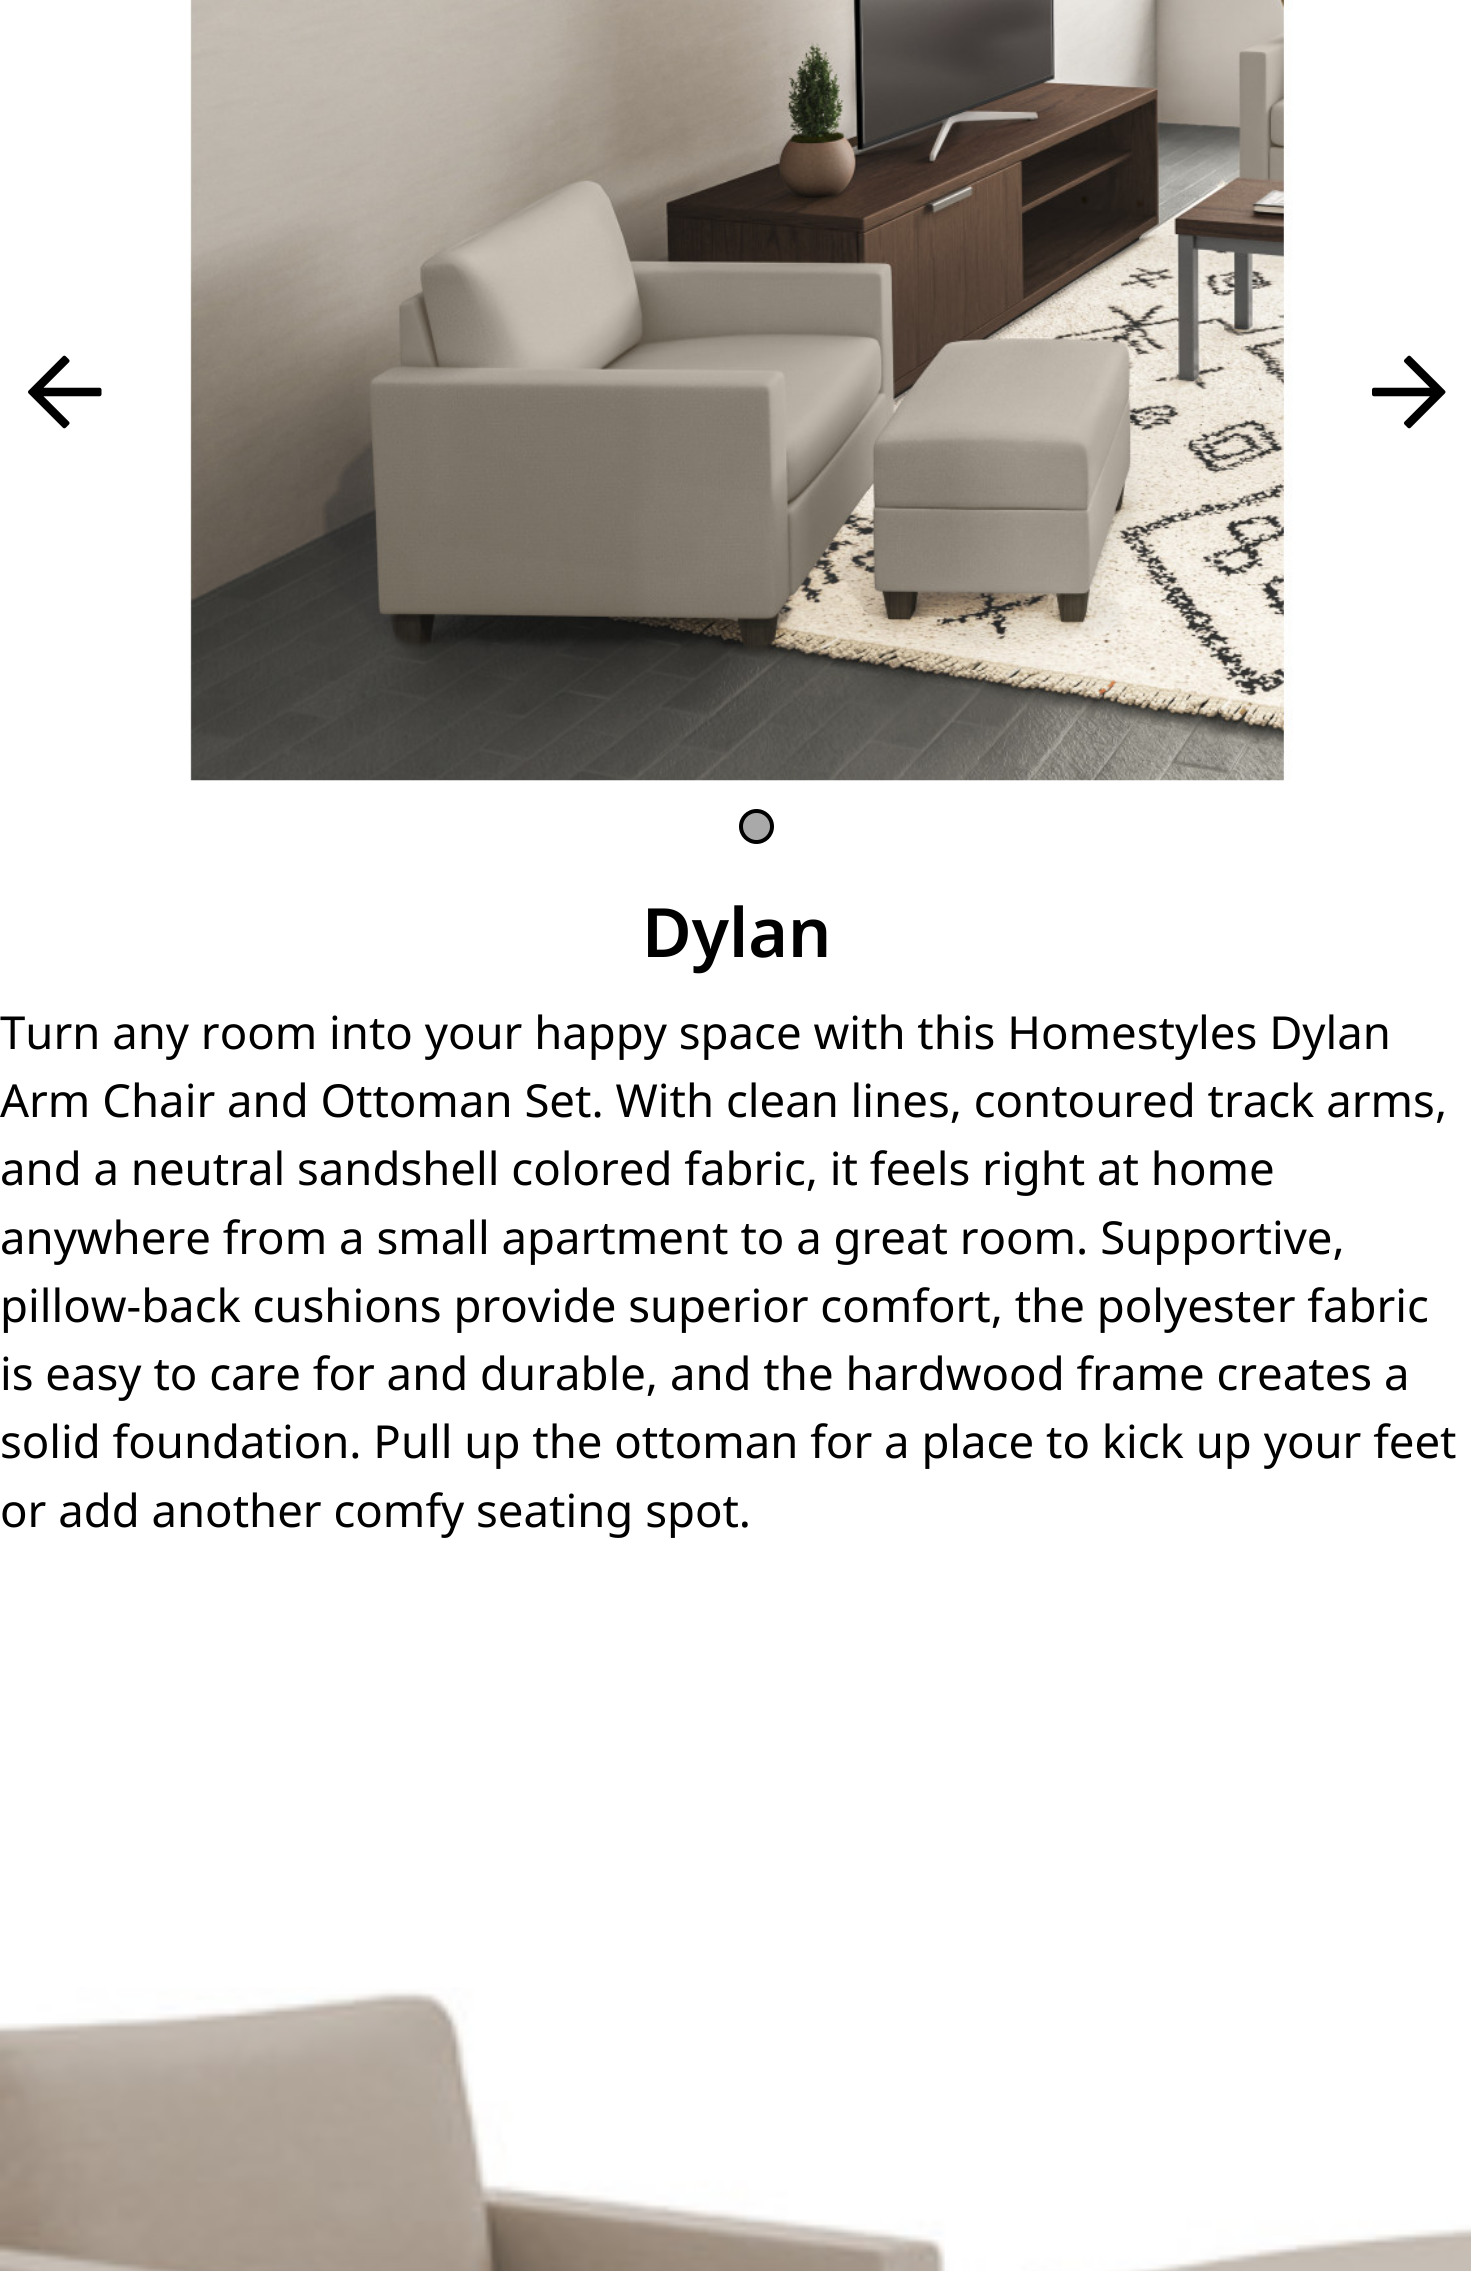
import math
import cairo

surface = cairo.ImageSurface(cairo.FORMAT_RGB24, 1471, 2271)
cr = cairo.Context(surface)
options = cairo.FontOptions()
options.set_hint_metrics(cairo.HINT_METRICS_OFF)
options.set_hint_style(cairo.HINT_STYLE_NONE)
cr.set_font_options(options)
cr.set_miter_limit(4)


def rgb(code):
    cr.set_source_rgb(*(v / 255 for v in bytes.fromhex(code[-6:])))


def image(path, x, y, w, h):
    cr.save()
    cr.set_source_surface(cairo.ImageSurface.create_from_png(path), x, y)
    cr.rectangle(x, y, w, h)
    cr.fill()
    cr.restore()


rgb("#ffffff")
cr.paint()
image("img/1.png", 28, 355, 74, 74)
image("img/2.png", 189, 0, 1104, 781)
image("img/3.png", 1372, 355, 74, 74)
rgb("#a9a9a9")
cr.arc(756.5, 826.5, 15.5, 0, 2 * math.pi)
cr.fill_preserve()
rgb("#000000")
cr.set_line_width(4)
cr.stroke()
image("img/4.png", 0, 1987, 1471, 284)
cr.select_font_face("Noto Sans SemiBold")
cr.set_font_size(68)
cr.move_to(642, 957)
cr.show_text("Dylan")
cr.select_font_face("Noto Sans")
cr.set_font_size(45.5)
for x, y, s in [
    (0, 1049, "Turn any room into your happy space with this Homestyles Dylan"),
    (0, 1117, "Arm Chair and Ottoman Set. With clean lines, contoured track arms,"),
    (0, 1185, "and a neutral sandshell colored fabric, it feels right at home"),
    (0, 1254, "anywhere from a small apartment to a great room. Supportive,"),
    (0, 1322, "pillow-back cushions provide superior comfort, the polyester fabric"),
    (0, 1390, "is easy to care for and durable, and the hardwood frame creates a"),
    (0, 1458, "solid foundation. Pull up the ottoman for a place to kick up your feet"),
    (0, 1527, "or add another comfy seating spot."),
]:
    cr.move_to(x, y)
    cr.show_text(s)
surface.write_to_png("page.png")
